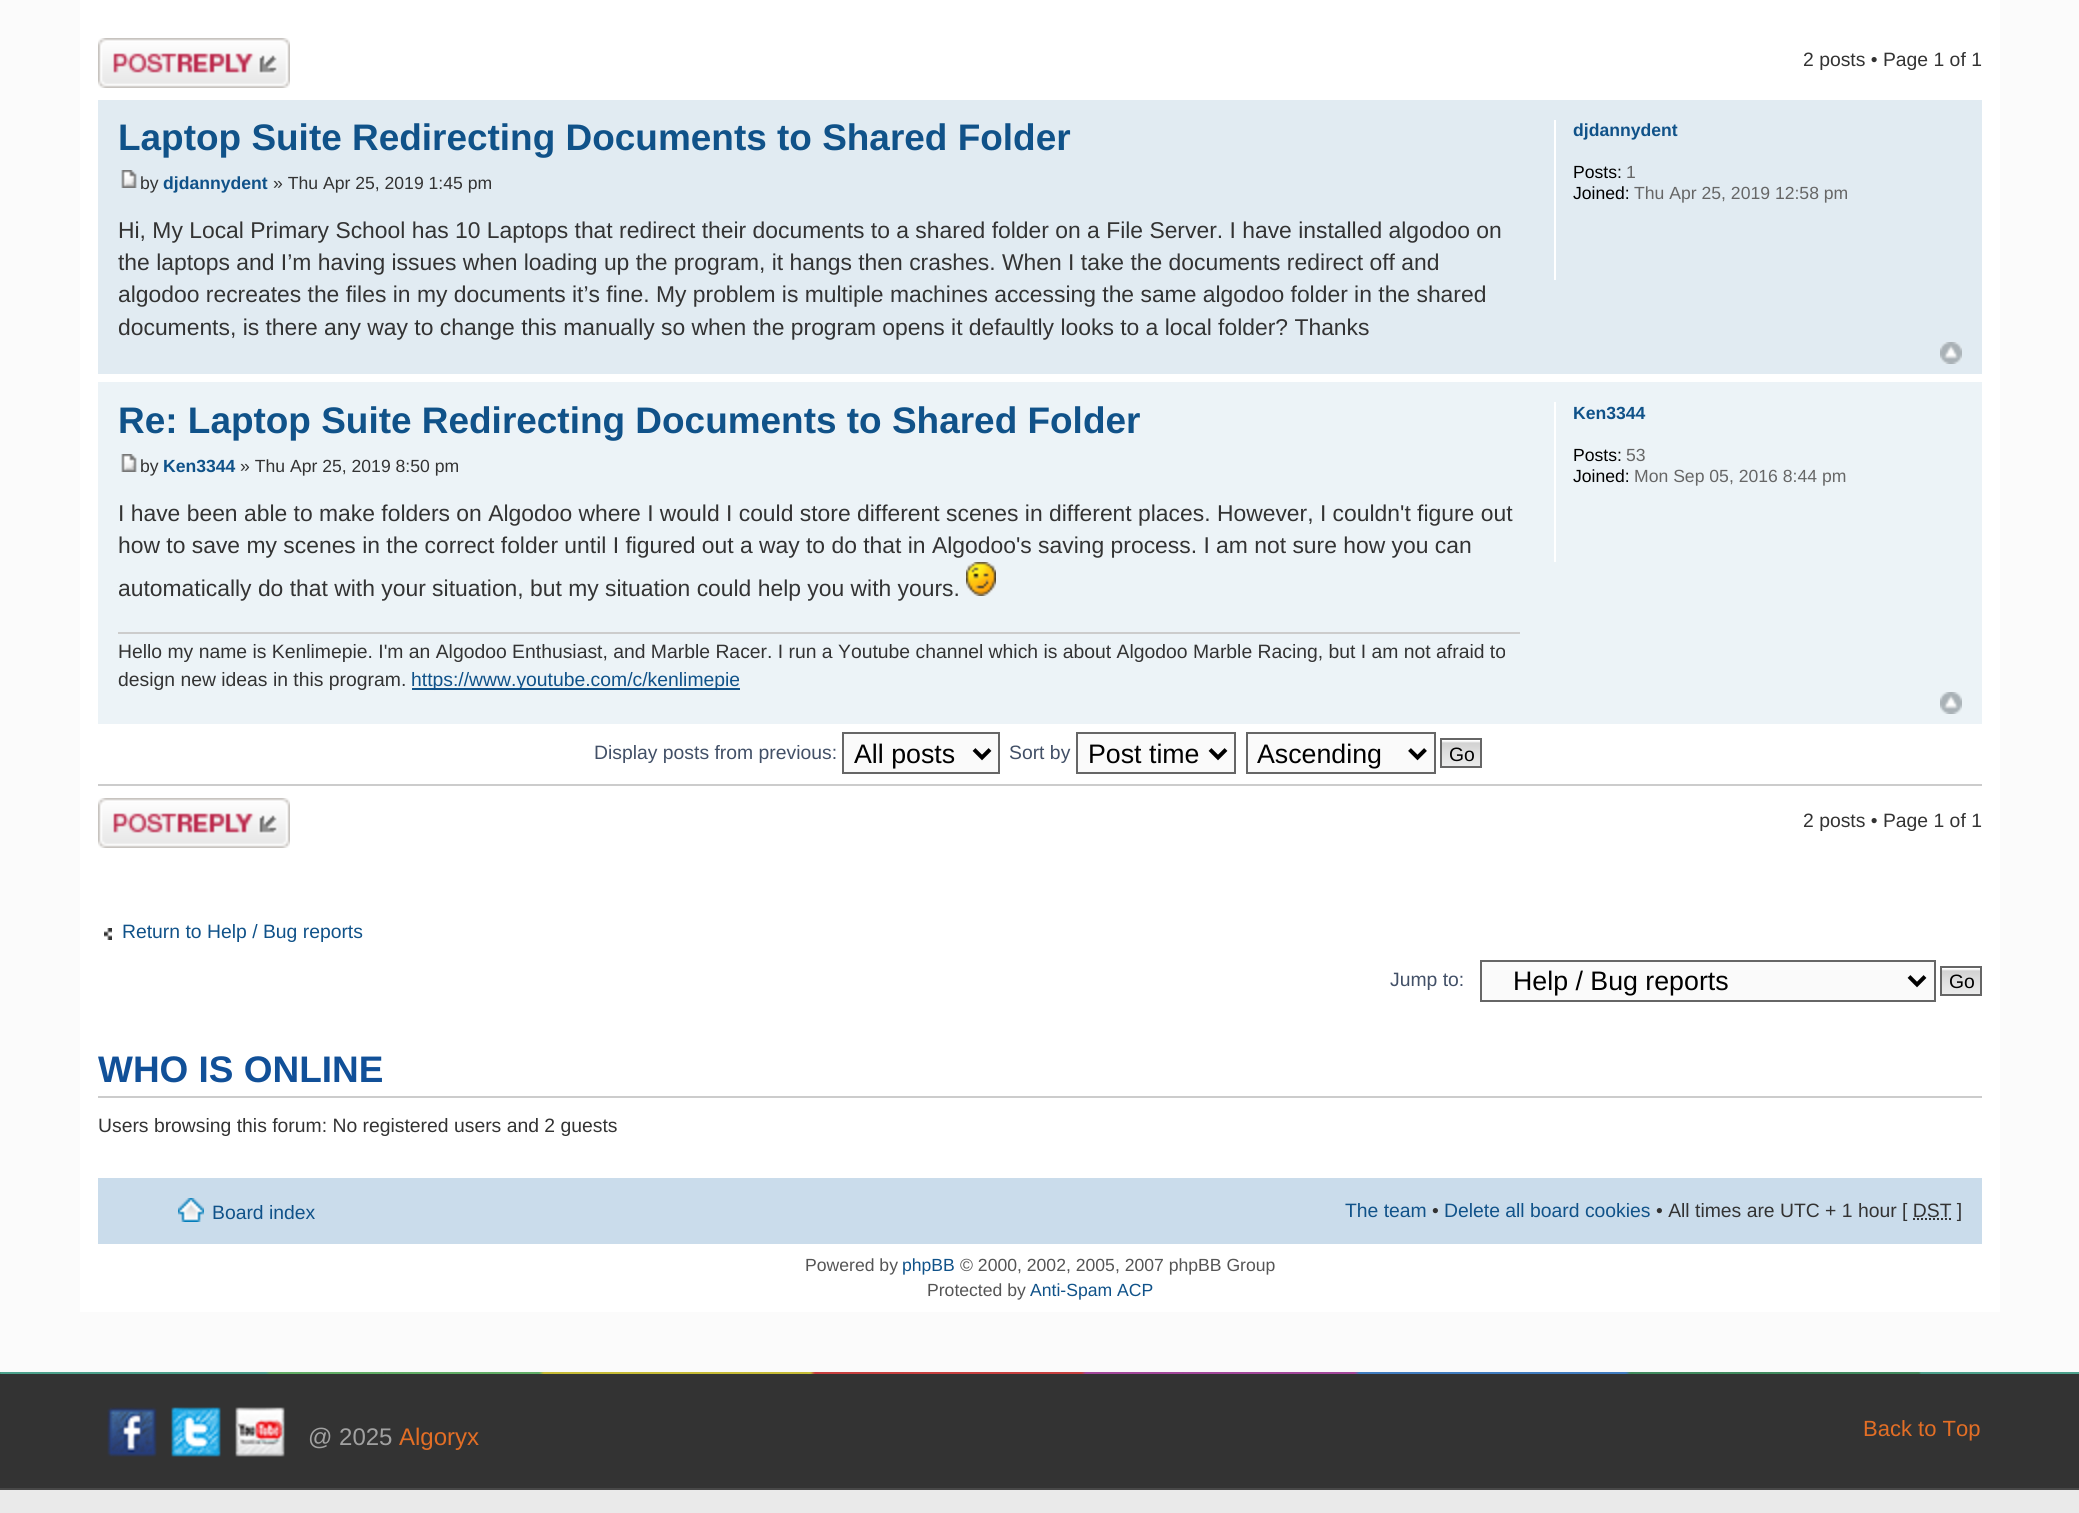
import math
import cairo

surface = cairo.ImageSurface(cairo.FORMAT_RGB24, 2079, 1513)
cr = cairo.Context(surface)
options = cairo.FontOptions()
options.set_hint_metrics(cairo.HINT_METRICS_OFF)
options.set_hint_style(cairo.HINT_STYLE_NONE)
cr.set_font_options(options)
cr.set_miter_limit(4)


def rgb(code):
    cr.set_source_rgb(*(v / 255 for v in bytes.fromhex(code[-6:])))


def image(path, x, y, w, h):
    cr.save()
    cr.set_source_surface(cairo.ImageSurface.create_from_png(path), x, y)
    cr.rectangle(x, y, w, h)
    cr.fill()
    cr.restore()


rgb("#eaeaea")
cr.paint()
rgb("#fbfbfb")
cr.rectangle(0, 0, 2079, 1372)
cr.fill()
rgb("#ffffff")
cr.rectangle(80, 0, 1920, 1312)
cr.fill()
image("img/1.png", 98, 38, 192, 50)
rgb("#e1ebf2")
cr.rectangle(98, 100, 1884, 274)
cr.fill()
image("img/2.png", 121, 170, 16, 18)
rgb("#ffffff")
cr.rectangle(1554, 120, 2, 160)
cr.fill()
image("img/3.png", 1940, 342, 22, 22)
rgb("#ecf3f7")
cr.rectangle(98, 382, 1884, 342)
cr.fill()
image("img/4.png", 121, 454, 16, 18)
image("img/5.png", 966, 562, 30, 34)
for x, y, w, h, color in [
    (118, 632, 1402, 2, "#cccccc"),
    (412, 688, 328, 2, "#105289"),
    (1554, 402, 2, 160, "#ffffff"),
]:
    rgb(color)
    cr.rectangle(x, y, w, h)
    cr.fill()
image("img/6.png", 1940, 692, 22, 22)
rgb("#fafafa")
cr.rectangle(843, 733, 156, 40)
cr.fill_preserve()
rgb("#666666")
cr.stroke()
cr.new_path()
cr.move_to(974, 749.5)
cr.line_to(982, 757.5)
cr.line_to(990, 749.5)
rgb("#000000")
cr.set_line_width(4)
cr.stroke()
rgb("#fafafa")
cr.rectangle(1077, 733, 158, 40)
cr.fill_preserve()
rgb("#666666")
cr.set_line_width(2)
cr.stroke()
cr.new_path()
cr.move_to(1210, 749.5)
cr.line_to(1218, 757.5)
cr.line_to(1226, 749.5)
rgb("#000000")
cr.set_line_width(4)
cr.stroke()
rgb("#fafafa")
cr.rectangle(1247, 733, 188, 40)
cr.fill_preserve()
rgb("#666666")
cr.set_line_width(2)
cr.stroke()
cr.new_path()
cr.move_to(1409.5, 749.5)
cr.line_to(1417.5, 757.5)
cr.line_to(1425.5, 749.5)
rgb("#000000")
cr.set_line_width(4)
cr.stroke()
image("img/7.png", 1442, 740, 38, 26)
cr.rectangle(1441, 739, 40, 28)
rgb("#666666")
cr.set_line_width(2)
cr.stroke()
rgb("#cccccc")
cr.rectangle(98, 784, 1884, 2)
cr.fill()
image("img/1.png", 98, 798, 192, 50)
image("img/8.png", 104, 928, 8, 12)
rgb("#fafafa")
cr.rectangle(1481, 961, 454, 40)
cr.fill_preserve()
rgb("#666666")
cr.stroke()
cr.new_path()
cr.move_to(1909, 976.5)
cr.line_to(1917, 984.5)
cr.line_to(1925, 976.5)
rgb("#000000")
cr.set_line_width(4)
cr.stroke()
image("img/7.png", 1942, 968, 38, 26)
cr.rectangle(1941, 967, 40, 28)
rgb("#666666")
cr.set_line_width(2)
cr.stroke()
rgb("#cccccc")
cr.rectangle(98, 1096, 1884, 2)
cr.fill()
rgb("#cadceb")
cr.rectangle(98, 1178, 1884, 66)
cr.fill()
image("img/9.png", 178, 1198, 26, 24)
cr.new_path()
cr.move_to(1913, 1219)
cr.line_to(1951.5, 1219)
rgb("#333333")
cr.set_dash([2, 2])
cr.stroke()
cr.rectangle(0, 1374, 2079, 114)
cr.fill()
image("img/10.png", 0, 1372, 2079, 2)
rgb("#484848")
cr.rectangle(0, 1488, 2079, 2)
cr.fill()
image("img/11.png", 107, 1407, 50, 50)
image("img/12.png", 171, 1407, 50, 50)
image("img/13.png", 235, 1407, 50, 50)
cr.select_font_face("Liberation Sans")
cr.set_font_size(19.35)
rgb("#333333")
cr.move_to(1803, 66)
cr.show_text("2 posts • Page 1 of 1")
cr.select_font_face("Liberation Sans", cairo.FONT_SLANT_NORMAL, cairo.FONT_WEIGHT_BOLD)
cr.set_font_size(36.95)
rgb("#105289")
cr.move_to(118, 150)
cr.show_text("Laptop Suite Redirecting Documents to Shared Folder")
cr.select_font_face("Liberation Sans")
cr.set_font_size(17.6)
rgb("#333333")
cr.move_to(140, 189)
cr.show_text("by")
cr.select_font_face("Liberation Sans", cairo.FONT_SLANT_NORMAL, cairo.FONT_WEIGHT_BOLD)
rgb("#105289")
cr.move_to(163, 189)
cr.show_text("djdannydent")
cr.select_font_face("Liberation Sans")
rgb("#333333")
cr.move_to(273, 189)
cr.show_text("» Thu Apr 25, 2019 1:45 pm")
cr.set_font_size(22.88)
for x, y, s in [
    (118, 238, "Hi, My Local Primary School has 10 Laptops that redirect their documents to a shared folder on a File Server. I have installed algodoo on"),
    (118, 270, "the laptops and I’m having issues when loading up the program, it hangs then crashes. When I take the documents redirect off and"),
    (118, 302, "algodoo recreates the files in my documents it’s fine. My problem is multiple machines accessing the same algodoo folder in the shared"),
    (118, 335, "documents, is there any way to change this manually so when the program opens it defaultly looks to a local folder? Thanks"),
]:
    cr.move_to(x, y)
    cr.show_text(s)
cr.select_font_face("Liberation Sans", cairo.FONT_SLANT_NORMAL, cairo.FONT_WEIGHT_BOLD)
cr.set_font_size(17.6)
rgb("#105289")
cr.move_to(1573, 136)
cr.show_text("djdannydent")
cr.select_font_face("Liberation Sans")
rgb("#000000")
cr.move_to(1573, 178)
cr.show_text("Posts:")
rgb("#666666")
cr.move_to(1626, 178)
cr.show_text("1")
rgb("#000000")
cr.move_to(1573, 199)
cr.show_text("Joined:")
rgb("#666666")
cr.move_to(1634, 199)
cr.show_text("Thu Apr 25, 2019 12:58 pm")
cr.select_font_face("Liberation Sans", cairo.FONT_SLANT_NORMAL, cairo.FONT_WEIGHT_BOLD)
cr.set_font_size(36.95)
rgb("#105289")
cr.move_to(118, 433)
cr.show_text("Re: Laptop Suite Redirecting Documents to Shared Folder")
cr.select_font_face("Liberation Sans")
cr.set_font_size(17.6)
rgb("#333333")
cr.move_to(140, 472)
cr.show_text("by")
cr.select_font_face("Liberation Sans", cairo.FONT_SLANT_NORMAL, cairo.FONT_WEIGHT_BOLD)
rgb("#105289")
cr.move_to(163, 472)
cr.show_text("Ken3344")
cr.select_font_face("Liberation Sans")
rgb("#333333")
cr.move_to(240, 472)
cr.show_text("» Thu Apr 25, 2019 8:50 pm")
cr.set_font_size(22.88)
for x, y, s in [
    (118, 521, "I have been able to make folders on Algodoo where I would I could store different scenes in different places. However, I couldn't figure out"),
    (118, 553, "how to save my scenes in the correct folder until I figured out a way to do that in Algodoo's saving process. I am not sure how you can"),
    (118, 596, "automatically do that with your situation, but my situation could help you with yours."),
]:
    cr.move_to(x, y)
    cr.show_text(s)
cr.set_font_size(19.35)
cr.move_to(118, 658)
cr.show_text("Hello my name is Kenlimepie. I'm an Algodoo Enthusiast, and Marble Racer. I run a Youtube channel which is about Algodoo Marble Racing, but I am not afraid to")
cr.move_to(118, 686)
cr.show_text("design new ideas in this program.")
rgb("#105289")
cr.move_to(411, 686)
cr.show_text("https://www.youtube.com/c/kenlimepie")
cr.select_font_face("Liberation Sans", cairo.FONT_SLANT_NORMAL, cairo.FONT_WEIGHT_BOLD)
cr.set_font_size(17.6)
cr.move_to(1573, 419)
cr.show_text("Ken3344")
cr.select_font_face("Liberation Sans")
rgb("#000000")
cr.move_to(1573, 461)
cr.show_text("Posts:")
rgb("#666666")
cr.move_to(1626, 461)
cr.show_text("53")
rgb("#000000")
cr.move_to(1573, 482)
cr.show_text("Joined:")
rgb("#666666")
cr.move_to(1634, 482)
cr.show_text("Mon Sep 05, 2016 8:44 pm")
cr.set_font_size(19.35)
rgb("#425067")
cr.move_to(594, 759)
cr.show_text("Display posts from previous:")
cr.set_font_size(26.75)
rgb("#000000")
cr.move_to(854, 763)
cr.show_text("All posts")
cr.set_font_size(19.35)
rgb("#425067")
cr.move_to(1009, 759)
cr.show_text("Sort by")
cr.set_font_size(26.75)
rgb("#000000")
cr.move_to(1088, 763)
cr.show_text("Post time")
cr.move_to(1257, 763)
cr.show_text("Ascending")
cr.set_font_size(19.35)
cr.move_to(1449, 761)
cr.show_text("Go")
rgb("#333333")
cr.move_to(1803, 827)
cr.show_text("2 posts • Page 1 of 1")
rgb("#105289")
cr.move_to(122, 938)
cr.show_text("Return to Help / Bug reports")
rgb("#425067")
cr.move_to(1390, 986)
cr.show_text("Jump to:")
cr.set_font_size(26.75)
rgb("#000000")
cr.move_to(1513, 990)
cr.show_text("Help / Bug reports")
cr.set_font_size(19.35)
cr.move_to(1949, 988)
cr.show_text("Go")
cr.select_font_face("Liberation Sans", cairo.FONT_SLANT_NORMAL, cairo.FONT_WEIGHT_BOLD)
cr.set_font_size(36.95)
rgb("#115098")
cr.move_to(98, 1082)
cr.show_text("WHO IS ONLINE")
cr.select_font_face("Liberation Sans")
cr.set_font_size(19.35)
rgb("#333333")
cr.move_to(98, 1132)
cr.show_text("Users browsing this forum: No registered users and 2 guests")
rgb("#105289")
cr.move_to(212, 1219)
cr.show_text("Board index")
cr.move_to(1345, 1217)
cr.show_text("The team")
rgb("#333333")
cr.move_to(1432, 1217)
cr.show_text("•")
rgb("#105289")
cr.move_to(1444, 1217)
cr.show_text("Delete all board cookies")
rgb("#333333")
cr.move_to(1656, 1217)
cr.show_text("• All times are UTC + 1 hour [ DST ]")
cr.set_font_size(17.6)
rgb("#555555")
cr.move_to(805, 1271)
cr.show_text("Powered by")
rgb("#105289")
cr.move_to(902, 1271)
cr.show_text("phpBB")
rgb("#555555")
cr.move_to(960, 1271)
cr.show_text("© 2000, 2002, 2005, 2007 phpBB Group")
cr.move_to(927, 1296)
cr.show_text("Protected by")
rgb("#105289")
cr.move_to(1030, 1296)
cr.show_text("Anti-Spam ACP")
cr.set_font_size(24)
rgb("#a1a1a1")
cr.move_to(308, 1445)
cr.show_text("@ 2025")
rgb("#e36e25")
cr.move_to(399, 1445)
cr.show_text("Algoryx")
cr.set_font_size(22)
cr.move_to(1863, 1436)
cr.show_text("Back to Top")
surface.write_to_png("page.png")
